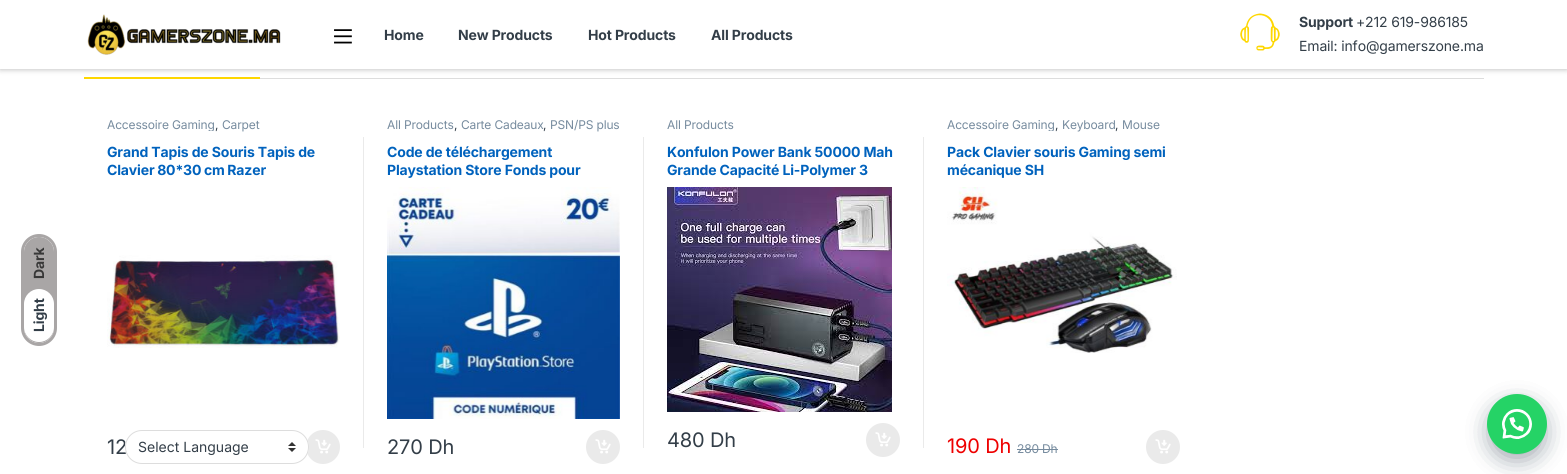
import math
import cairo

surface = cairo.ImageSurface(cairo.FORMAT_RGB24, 1567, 474)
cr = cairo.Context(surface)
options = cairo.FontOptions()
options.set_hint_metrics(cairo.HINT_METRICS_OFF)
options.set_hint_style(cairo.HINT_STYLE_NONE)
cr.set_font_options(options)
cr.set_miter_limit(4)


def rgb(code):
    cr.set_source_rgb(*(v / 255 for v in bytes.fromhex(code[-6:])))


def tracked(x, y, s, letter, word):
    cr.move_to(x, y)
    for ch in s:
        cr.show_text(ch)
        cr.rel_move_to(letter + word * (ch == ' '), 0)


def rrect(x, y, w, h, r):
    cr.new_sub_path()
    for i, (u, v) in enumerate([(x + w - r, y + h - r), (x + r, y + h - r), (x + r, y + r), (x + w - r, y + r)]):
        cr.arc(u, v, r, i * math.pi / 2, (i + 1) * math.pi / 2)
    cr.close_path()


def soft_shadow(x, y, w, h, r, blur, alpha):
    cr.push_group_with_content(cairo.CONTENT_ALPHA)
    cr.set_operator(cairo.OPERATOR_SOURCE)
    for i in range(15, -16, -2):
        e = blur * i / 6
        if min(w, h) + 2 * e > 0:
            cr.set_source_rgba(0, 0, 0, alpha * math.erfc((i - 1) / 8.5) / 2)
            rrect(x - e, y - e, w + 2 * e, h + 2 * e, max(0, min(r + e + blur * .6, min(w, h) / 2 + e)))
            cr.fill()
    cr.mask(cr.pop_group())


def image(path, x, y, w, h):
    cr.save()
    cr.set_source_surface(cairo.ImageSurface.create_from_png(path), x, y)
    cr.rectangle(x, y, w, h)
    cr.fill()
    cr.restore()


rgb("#ffffff")
cr.paint()
rrect(22.5, 235.5, 33, 109, 16.5)
rgb("#a9a6a6")
cr.set_line_width(3)
cr.stroke()
rrect(24, 237, 30, 106, 15)
cr.fill()
rgb("#ffffff")
rrect(24, 289, 30, 53, 15)
cr.fill()
rgb("#dddddd")
cr.rectangle(260, 78, 1224, 1)
cr.fill()
rgb("#fed700")
cr.rectangle(84, 77, 176, 2)
cr.fill()
rgb("#010101")
soft_shadow(0, 0, 1567, 69, 0, 3, 0.3)
rgb("#ffffff")
cr.rectangle(0, 0, 1567, 69)
cr.fill()
image("img/1.png", 87, 14, 194, 41)
image("img/2.png", 334, 29, 18, 15)
image("img/3.png", 1240, 13, 40, 38)
image("img/4.png", 107, 255, 233, 93)
rgb("#eaeaea")
cr.arc(323, 447, 17, 0, 2 * math.pi)
cr.fill()
image("img/5.png", 315, 439, 16, 15)
cr.rectangle(363, 137, 1, 311)
cr.fill()
image("img/6.png", 387, 187, 233, 232)
cr.arc(603, 447, 17, 0, 2 * math.pi)
cr.fill()
image("img/5.png", 595, 439, 16, 15)
cr.rectangle(643, 137, 1, 311)
cr.fill()
image("img/7.png", 667, 187, 225, 225)
cr.arc(883, 440, 17, 0, 2 * math.pi)
cr.fill()
image("img/5.png", 875, 432, 16, 15)
cr.rectangle(923, 137, 1, 311)
cr.fill()
image("img/8.png", 947, 187, 230, 166)
rgb("#768b9e")
cr.rectangle(1017, 449, 41, 1)
cr.fill()
rgb("#eaeaea")
cr.arc(1163, 447, 17, 0, 2 * math.pi)
cr.fill()
image("img/5.png", 1155, 439, 16, 15)
rgb("#2d3e4f")
soft_shadow(1492, 407, 50, 50, 25, 12.5, 0.3)
soft_shadow(1492, 407, 50, 50, 25, 12.5, 0.3)
rgb("#25d366")
cr.arc(1517, 424, 30, 0, 2 * math.pi)
cr.fill()
image("img/10.png", 1502, 409, 30, 30)
cr.select_font_face("Inter", cairo.FONT_SLANT_NORMAL, cairo.FONT_WEIGHT_BOLD)
cr.set_font_size(14)
rgb("#383838")
cr.save()
cr.translate(44, 279)
cr.rotate(-90 * math.pi / 180)
tracked(0, 0, "Dark", -0.15, 0)
cr.restore()
rgb("#333e48")
cr.save()
cr.translate(44, 332)
cr.rotate(-90 * math.pi / 180)
tracked(0, 0, "Light", -0.15, 0)
cr.restore()
for x, y, s in [
    (384, 40, "Home"),
    (458, 40, "New Products"),
    (588, 40, "Hot Products"),
    (711, 40, "All Products"),
    (1299, 27, "Support"),
]:
    tracked(x, y, s, -0.15, 0)
cr.select_font_face("Inter")
tracked(1356, 27, "+212 619-986185", -0.15, 0)
tracked(1299, 51, "Email: info@gamerszone.ma", -0.15, 0)
cr.save()
cr.rectangle(107, 119, 233, 12)
cr.clip()
cr.set_font_size(12)
rgb("#768b9e")
tracked(107, 129, "Accessoire Gaming", -0.15, 0)
cr.restore()
cr.set_font_size(12)
tracked(215, 129, ",", -0.15, 0)
rgb("#768b9e")
tracked(222, 129, "Carpet", -0.15, 0)
cr.select_font_face("Inter", cairo.FONT_SLANT_NORMAL, cairo.FONT_WEIGHT_BOLD)
cr.set_font_size(14)
rgb("#0062bd")
tracked(107, 157, "Grand Tapis de Souris Tapis de", -0.15, 0)
tracked(107, 175, "Clavier 80*30 cm Razer", -0.15, -0.5)
cr.select_font_face("Inter")
cr.set_font_size(20)
rgb("#333e48")
tracked(107, 454, "12", -0.15, 0)
cr.set_font_size(12)
rgb("#768b9e")
tracked(387, 129, "All Products", -0.15, 0)
rgb("#333e48")
tracked(454, 129, ",", -0.15, 0)
rgb("#768b9e")
tracked(461, 129, "Carte Cadeaux", -0.15, 0)
rgb("#333e48")
tracked(543, 129, ",", -0.15, 0)
rgb("#768b9e")
tracked(550, 129, "PSN/PS plus", -0.15, 0)
cr.select_font_face("Inter", cairo.FONT_SLANT_NORMAL, cairo.FONT_WEIGHT_BOLD)
cr.set_font_size(14)
rgb("#0062bd")
tracked(387, 157, "Code de téléchargement", -0.15, 0)
tracked(387, 175, "Playstation Store Fonds pour", -0.15, 0)
cr.select_font_face("Inter")
cr.set_font_size(20)
rgb("#333e48")
tracked(387, 454, "270 Dh", -0.15, 0)
cr.set_font_size(12)
rgb("#768b9e")
tracked(667, 129, "All Products", -0.15, 0)
cr.select_font_face("Inter", cairo.FONT_SLANT_NORMAL, cairo.FONT_WEIGHT_BOLD)
cr.set_font_size(14)
rgb("#0062bd")
tracked(667, 157, "Konfulon Power Bank 50000 Mah", -0.15, 0)
tracked(667, 175, "Grande Capacité Li-Polymer 3", -0.15, 0)
cr.select_font_face("Inter")
cr.set_font_size(20)
rgb("#333e48")
tracked(667, 447, "480 Dh", -0.15, 0)
cr.save()
cr.rectangle(947, 119, 233, 12)
cr.clip()
cr.set_font_size(12)
rgb("#768b9e")
tracked(947, 129, "Accessoire Gaming", -0.15, 0)
cr.restore()
cr.set_font_size(12)
tracked(1055, 129, ",", -0.15, 0)
rgb("#768b9e")
tracked(1062, 129, "Keyboard", -0.15, 0)
rgb("#333e48")
tracked(1115, 129, ",", -0.15, 0)
rgb("#768b9e")
tracked(1122, 129, "Mouse", -0.15, 0)
cr.select_font_face("Inter", cairo.FONT_SLANT_NORMAL, cairo.FONT_WEIGHT_BOLD)
cr.set_font_size(14)
rgb("#0062bd")
tracked(947, 157, "Pack Clavier souris Gaming semi", -0.15, 0)
tracked(947, 175, "mécanique SH", -0.15, 0)
cr.select_font_face("Inter")
cr.set_font_size(20)
rgb("#ee0000")
tracked(947, 453, "190 Dh", -0.15, 0)
cr.set_font_size(12)
rgb("#768b9e")
tracked(1017, 453, "280 Dh", -0.15, 0)
rgb("#ffffff")
rrect(125, 430, 184, 34, 17)
cr.fill()
image("img/9.png", 288, 442, 8, 10)
rrect(125.5, 430.5, 183, 33, 16.5)
rgb("#dddddd")
cr.set_line_width(1)
cr.stroke()
cr.set_font_size(14)
rgb("#333e48")
cr.move_to(138, 452)
cr.show_text("Select Language")
surface.write_to_png("page.png")
